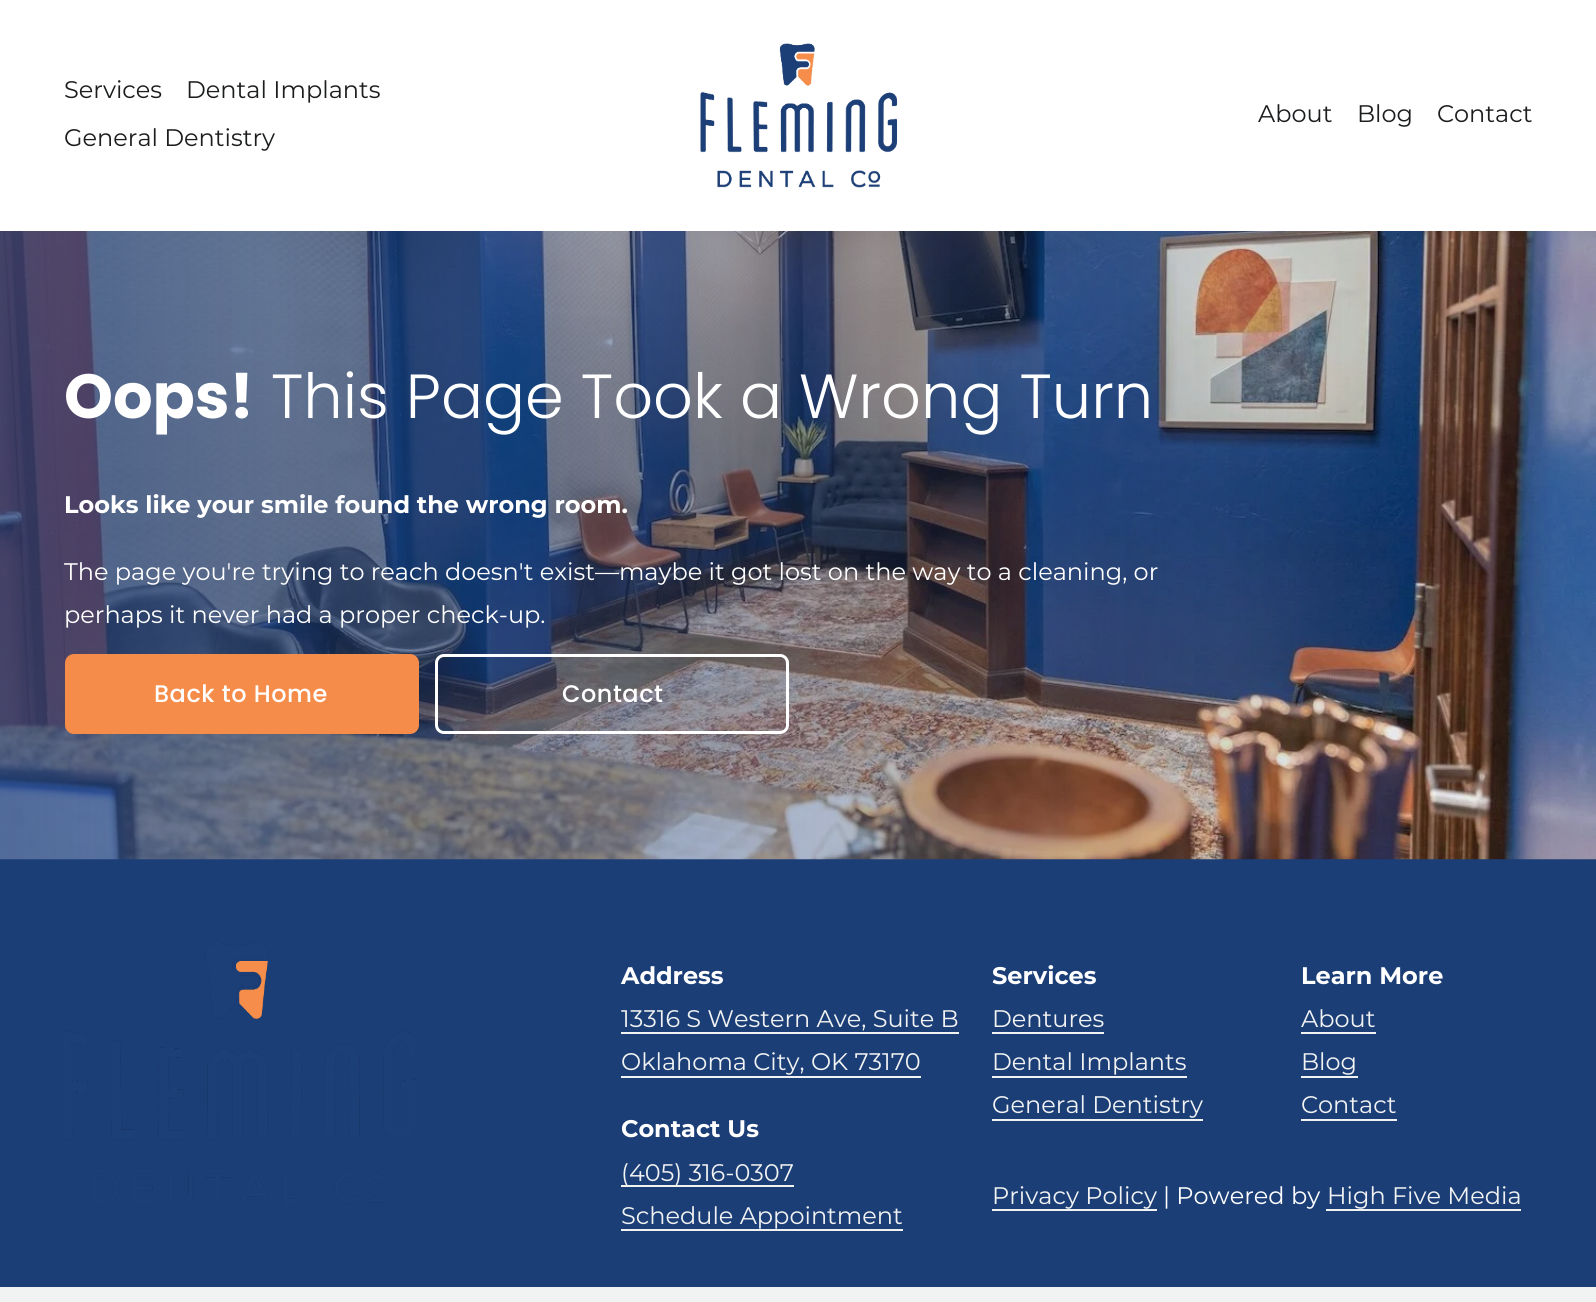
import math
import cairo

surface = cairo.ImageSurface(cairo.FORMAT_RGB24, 1596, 1302)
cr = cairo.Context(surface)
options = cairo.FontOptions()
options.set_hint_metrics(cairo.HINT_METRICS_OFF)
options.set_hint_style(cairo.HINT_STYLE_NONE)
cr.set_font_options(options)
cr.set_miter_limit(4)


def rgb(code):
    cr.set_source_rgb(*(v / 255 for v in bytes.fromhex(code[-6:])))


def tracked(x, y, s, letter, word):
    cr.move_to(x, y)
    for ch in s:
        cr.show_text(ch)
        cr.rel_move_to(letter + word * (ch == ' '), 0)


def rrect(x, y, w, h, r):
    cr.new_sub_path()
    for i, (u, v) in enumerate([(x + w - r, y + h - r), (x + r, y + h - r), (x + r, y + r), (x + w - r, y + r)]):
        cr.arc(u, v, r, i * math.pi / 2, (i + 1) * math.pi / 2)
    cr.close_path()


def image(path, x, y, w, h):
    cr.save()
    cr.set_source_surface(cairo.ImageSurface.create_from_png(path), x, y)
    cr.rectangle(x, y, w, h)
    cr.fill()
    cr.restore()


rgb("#1b3e77")
cr.paint()
rgb("#ffffff")
cr.rectangle(0, 0, 1596, 231)
cr.fill()
image("img/1.png", 700, 43, 198, 145)
image("img/2.png", 0, 231, 1596, 629)
gradient = cairo.LinearGradient(0, 430, 1596, 430)
gradient.add_color_stop_rgba(0, 0.114, 0.239, 0.471, 0.75)
gradient.add_color_stop_rgba(1, 0.114, 0.239, 0.471, 0)
cr.set_source(gradient)
cr.rectangle(0, 231, 1550, 629)
cr.fill()
rgb("#f68c49")
rrect(65, 654, 354, 80, 9)
cr.fill()
rrect(436.5, 655.5, 351, 77, 7.5)
rgb("#ffffff")
cr.set_line_width(3)
cr.stroke()
image("img/3.png", 62, 943, 356, 261)
for x, y, w, h, color in [
    (621, 1032, 338, 2, "#f1f2f2"),
    (621, 1076, 300, 2, "#f1f2f2"),
    (621, 1185, 173, 2, "#f1f2f2"),
    (621, 1229, 282, 2, "#f1f2f2"),
    (992, 1032, 112, 2, "#f1f2f2"),
    (992, 1076, 195, 2, "#f1f2f2"),
    (992, 1119, 211, 2, "#f1f2f2"),
    (1301, 1032, 75, 2, "#f1f2f2"),
    (1301, 1076, 57, 2, "#f1f2f2"),
    (1301, 1119, 96, 2, "#f1f2f2"),
    (992, 1209, 165, 2, "#f1f2f2"),
    (1326, 1209, 195, 2, "#f1f2f2"),
    (0, 1287, 1596, 15, "#f1f2f2"),
]:
    rgb(color)
    cr.rectangle(x, y, w, h)
    cr.fill()
cr.select_font_face("Montserrat")
cr.set_font_size(24)
rgb("#1b1d1f")
for x, y, s in [
    (64, 98, "Services"),
    (186, 98, "Dental Implants"),
    (64, 146, "General Dentistry"),
    (1258, 122, "About"),
    (1357, 122, "Blog"),
    (1437, 122, "Contact"),
]:
    cr.move_to(x, y)
    cr.show_text(s)
cr.select_font_face("Poppins", cairo.FONT_SLANT_NORMAL, cairo.FONT_WEIGHT_BOLD)
cr.set_font_size(62.25)
rgb("#ffffff")
cr.move_to(64, 418)
cr.show_text("Oops!")
cr.select_font_face("Poppins Light")
cr.move_to(271, 418)
cr.show_text("This Page Took a Wrong Turn")
cr.select_font_face("Montserrat", cairo.FONT_SLANT_NORMAL, cairo.FONT_WEIGHT_BOLD)
cr.set_font_size(24)
cr.move_to(64, 513)
cr.show_text("Looks like your smile found the wrong room.")
cr.select_font_face("Montserrat")
cr.move_to(64, 580)
cr.show_text("The page you're trying to reach doesn't exist—maybe it got lost on the way to a cleaning, or")
cr.move_to(64, 623)
cr.show_text("perhaps it never had a proper check-up.")
cr.select_font_face("Poppins Medium")
tracked(154, 702, "Back to Home", 0.5, 0)
tracked(562, 702, "Contact", 0.5, 0)
cr.select_font_face("Montserrat", cairo.FONT_SLANT_NORMAL, cairo.FONT_WEIGHT_BOLD)
cr.move_to(621, 984)
cr.show_text("Address")
cr.select_font_face("Montserrat")
rgb("#f1f2f2")
cr.move_to(621, 1027)
cr.show_text("13316 S Western Ave, Suite B")
cr.move_to(621, 1070)
cr.show_text("Oklahoma City, OK 73170")
cr.select_font_face("Montserrat", cairo.FONT_SLANT_NORMAL, cairo.FONT_WEIGHT_BOLD)
rgb("#ffffff")
cr.move_to(621, 1137)
cr.show_text("Contact Us")
cr.select_font_face("Montserrat")
rgb("#f1f2f2")
cr.move_to(621, 1181)
cr.show_text("(405) 316-0307")
cr.move_to(621, 1224)
cr.show_text("Schedule Appointment")
cr.select_font_face("Montserrat", cairo.FONT_SLANT_NORMAL, cairo.FONT_WEIGHT_BOLD)
rgb("#ffffff")
cr.move_to(992, 984)
cr.show_text("Services")
cr.select_font_face("Montserrat")
rgb("#f1f2f2")
for x, y, s in [
    (992, 1027, "Dentures"),
    (992, 1070, "Dental Implants"),
    (992, 1113, "General Dentistry"),
]:
    cr.move_to(x, y)
    cr.show_text(s)
cr.select_font_face("Montserrat", cairo.FONT_SLANT_NORMAL, cairo.FONT_WEIGHT_BOLD)
rgb("#ffffff")
cr.move_to(1301, 984)
cr.show_text("Learn More")
cr.select_font_face("Montserrat")
rgb("#f1f2f2")
for x, y, s in [
    (1301, 1027, "About"),
    (1301, 1070, "Blog"),
    (1301, 1113, "Contact"),
    (992, 1204, "Privacy Policy"),
]:
    cr.move_to(x, y)
    cr.show_text(s)
rgb("#ffffff")
cr.move_to(1163, 1204)
cr.show_text("| Powered by")
rgb("#f1f2f2")
cr.move_to(1327, 1204)
cr.show_text("High Five Media")
surface.write_to_png("page.png")
